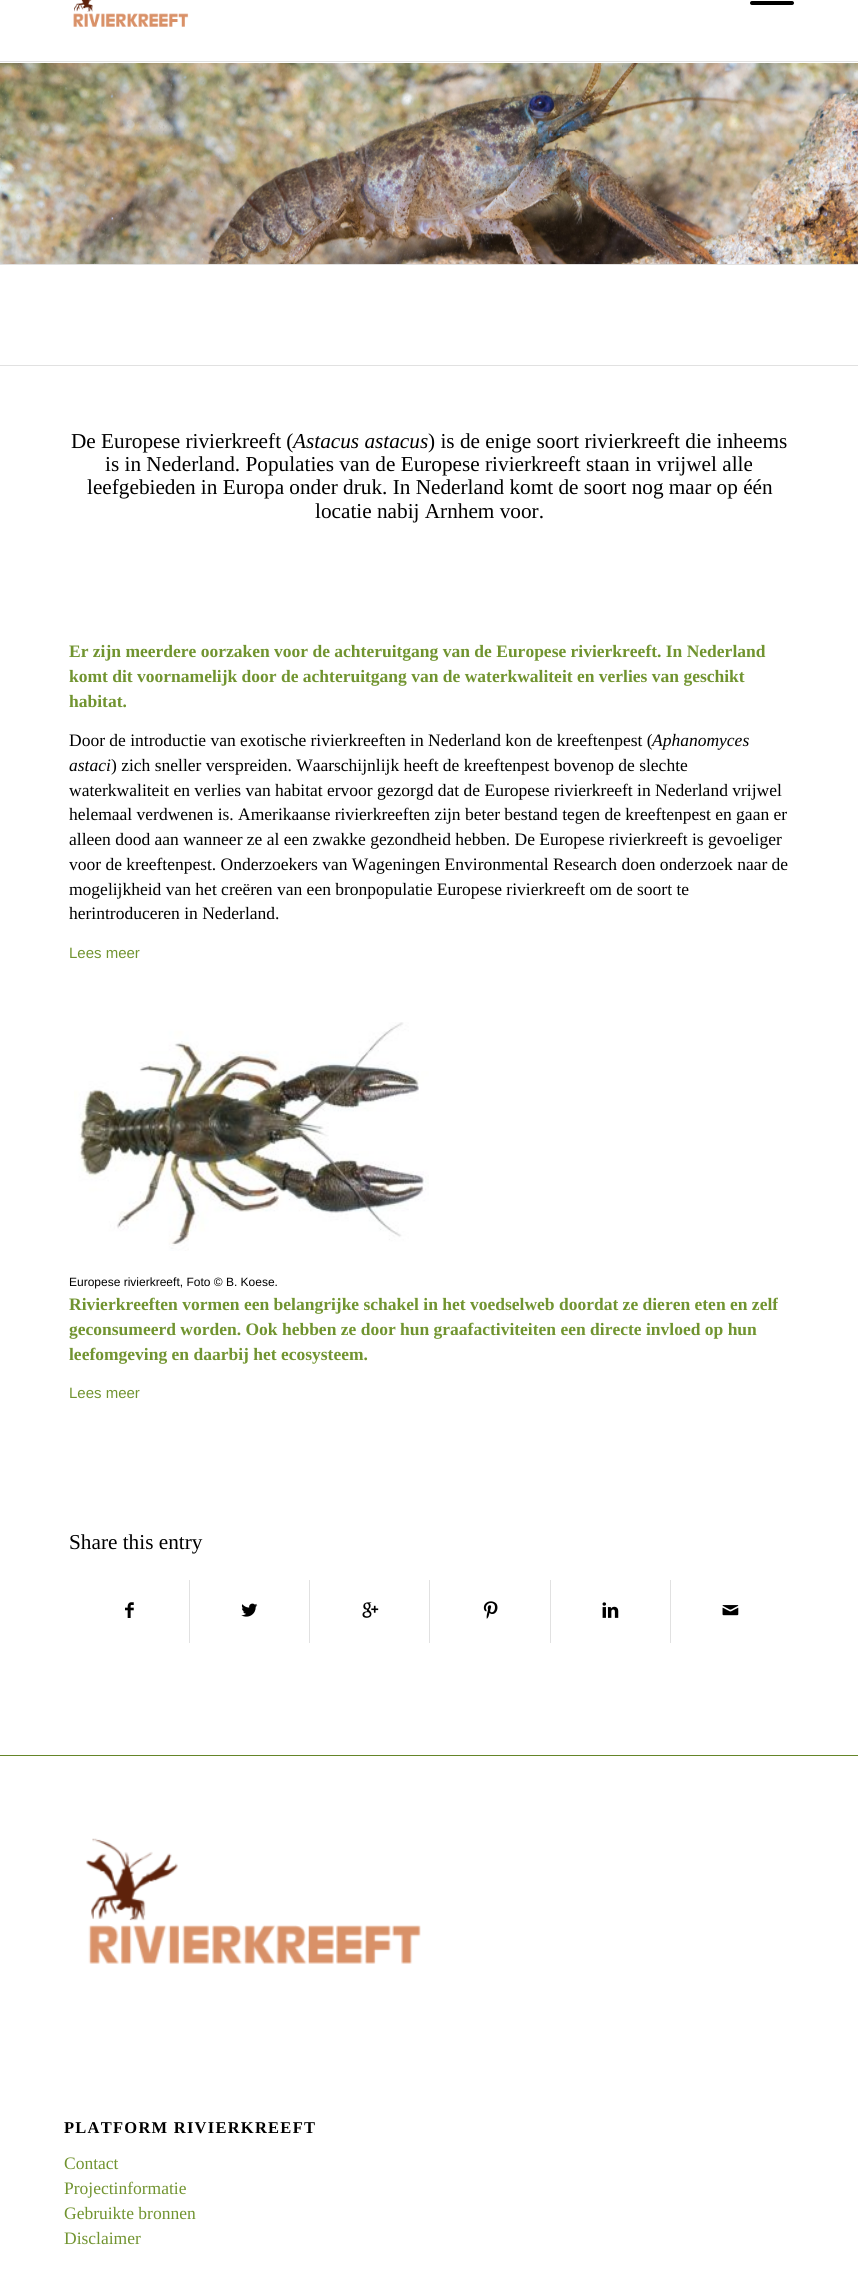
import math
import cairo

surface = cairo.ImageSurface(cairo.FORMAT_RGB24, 858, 2282)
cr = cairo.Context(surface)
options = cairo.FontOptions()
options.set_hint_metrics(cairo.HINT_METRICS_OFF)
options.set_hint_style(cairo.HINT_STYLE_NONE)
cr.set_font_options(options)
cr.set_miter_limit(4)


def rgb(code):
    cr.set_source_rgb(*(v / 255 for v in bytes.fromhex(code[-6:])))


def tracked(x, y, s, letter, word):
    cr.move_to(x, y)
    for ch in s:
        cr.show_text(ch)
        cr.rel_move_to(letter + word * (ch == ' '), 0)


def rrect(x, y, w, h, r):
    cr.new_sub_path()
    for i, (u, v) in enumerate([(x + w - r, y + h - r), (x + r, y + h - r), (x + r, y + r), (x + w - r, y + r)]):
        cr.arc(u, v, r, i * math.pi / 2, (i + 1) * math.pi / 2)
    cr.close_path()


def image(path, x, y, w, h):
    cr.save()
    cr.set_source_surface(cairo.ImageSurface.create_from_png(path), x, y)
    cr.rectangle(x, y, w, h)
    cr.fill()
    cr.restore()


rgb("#ffffff")
cr.paint()
rgb("#e1e1e1")
cr.rectangle(0, 61, 858, 1)
cr.fill()
image("img/1.png", 73, 0, 116, 27)
rgb("#000000")
rrect(750, 1, 44, 4, 2)
cr.fill()
image("img/2.png", 0, 63, 858, 201)
rgb("#e1e1e1")
cr.rectangle(0, 264, 858, 1)
cr.fill()
cr.rectangle(0, 365, 858, 1)
cr.fill()
image("img/3.png", 74, 1022, 355, 229)
image("img/4.png", 125, 1602, 9, 16)
cr.rectangle(189, 1580, 1, 63)
cr.fill()
image("img/5.png", 241, 1603, 17, 14)
cr.rectangle(309, 1580, 1, 63)
cr.fill()
image("img/6.png", 362, 1602, 17, 16)
cr.rectangle(429, 1580, 1, 63)
cr.fill()
image("img/7.png", 483, 1601, 15, 18)
cr.rectangle(550, 1580, 1, 63)
cr.fill()
image("img/8.png", 602, 1602, 17, 16)
cr.rectangle(670, 1580, 1, 63)
cr.fill()
image("img/9.png", 722, 1605, 17, 11)
rgb("#658529")
cr.rectangle(0, 1755, 858, 1)
cr.fill()
image("img/10.png", 86, 1838, 335, 126)
cr.select_font_face("Liberation Serif")
cr.set_font_size(21.25)
rgb("#000000")
cr.move_to(71, 448)
cr.show_text("De Europese rivierkreeft (")
cr.select_font_face("Liberation Serif", cairo.FONT_SLANT_ITALIC)
cr.move_to(293, 448)
cr.show_text("Astacus astacus")
cr.select_font_face("Liberation Serif")
for x, y, s in [
    (428, 448, ") is de enige soort rivierkreeft die inheems"),
    (105, 471, "is in Nederland. Populaties van de Europese rivierkreeft staan in vrijwel alle"),
    (87, 494, "leefgebieden in Europa onder druk. In Nederland komt de soort nog maar op één"),
    (315, 518, "locatie nabij Arnhem voor."),
]:
    cr.move_to(x, y)
    cr.show_text(s)
cr.select_font_face("Liberation Serif", cairo.FONT_SLANT_NORMAL, cairo.FONT_WEIGHT_BOLD)
cr.set_font_size(17.5)
rgb("#719430")
for x, y, s in [
    (69, 657, "Er zijn meerdere oorzaken voor de achteruitgang van de Europese rivierkreeft. In Nederland"),
    (69, 682, "komt dit voornamelijk door de achteruitgang van de waterkwaliteit en verlies van geschikt"),
    (69, 707, "habitat."),
]:
    cr.move_to(x, y)
    cr.show_text(s)
cr.select_font_face("Liberation Serif")
rgb("#000000")
cr.move_to(69, 746)
cr.show_text("Door de introductie van exotische rivierkreeften in Nederland kon de kreeftenpest (")
cr.select_font_face("Liberation Serif", cairo.FONT_SLANT_ITALIC)
cr.move_to(652, 746)
cr.show_text("Aphanomyces")
cr.move_to(69, 771)
cr.show_text("astaci")
cr.select_font_face("Liberation Serif")
for x, y, s in [
    (111, 771, ") zich sneller verspreiden. Waarschijnlijk heeft de kreeftenpest bovenop de slechte"),
    (69, 796, "waterkwaliteit en verlies van habitat ervoor gezorgd dat de Europese rivierkreeft in Nederland vrijwel"),
    (69, 820, "helemaal verdwenen is. Amerikaanse rivierkreeften zijn beter bestand tegen de kreeftenpest en gaan er"),
    (69, 845, "alleen dood aan wanneer ze al een zwakke gezondheid hebben. De Europese rivierkreeft is gevoeliger"),
    (69, 870, "voor de kreeftenpest. Onderzoekers van Wageningen Environmental Research doen onderzoek naar de"),
    (69, 895, "mogelijkheid van het creëren van een bronpopulatie Europese rivierkreeft om de soort te"),
    (69, 919, "herintroduceren in Nederland."),
]:
    cr.move_to(x, y)
    cr.show_text(s)
cr.select_font_face("Liberation Sans")
cr.set_font_size(15)
rgb("#719430")
cr.move_to(69, 958)
cr.show_text("Lees meer")
cr.set_font_size(12)
rgb("#000000")
cr.move_to(69, 1286)
cr.show_text("Europese rivierkreeft, Foto © B. Koese.")
cr.select_font_face("Liberation Serif", cairo.FONT_SLANT_NORMAL, cairo.FONT_WEIGHT_BOLD)
cr.set_font_size(17.5)
rgb("#719430")
for x, y, s in [
    (69, 1310, "Rivierkreeften vormen een belangrijke schakel in het voedselweb doordat ze dieren eten en zelf"),
    (69, 1335, "geconsumeerd worden. Ook hebben ze door hun graafactiviteiten een directe invloed op hun"),
    (69, 1360, "leefomgeving en daarbij het ecosysteem."),
]:
    cr.move_to(x, y)
    cr.show_text(s)
cr.select_font_face("Liberation Sans")
cr.set_font_size(15)
cr.move_to(69, 1398)
cr.show_text("Lees meer")
cr.select_font_face("Liberation Serif")
cr.set_font_size(21.25)
rgb("#000000")
cr.move_to(69, 1549)
cr.show_text("Share this entry")
cr.select_font_face("Liberation Serif", cairo.FONT_SLANT_NORMAL, cairo.FONT_WEIGHT_BOLD)
cr.set_font_size(16.5)
tracked(64, 2133, "PLATFORM RIVIERKREEFT", 1.25, 0)
cr.select_font_face("Liberation Serif")
cr.set_font_size(17.5)
rgb("#719430")
for x, y, s in [
    (64, 2169, "Contact"),
    (64, 2194, "Projectinformatie"),
    (64, 2219, "Gebruikte bronnen"),
    (64, 2244, "Disclaimer"),
]:
    cr.move_to(x, y)
    cr.show_text(s)
surface.write_to_png("page.png")
